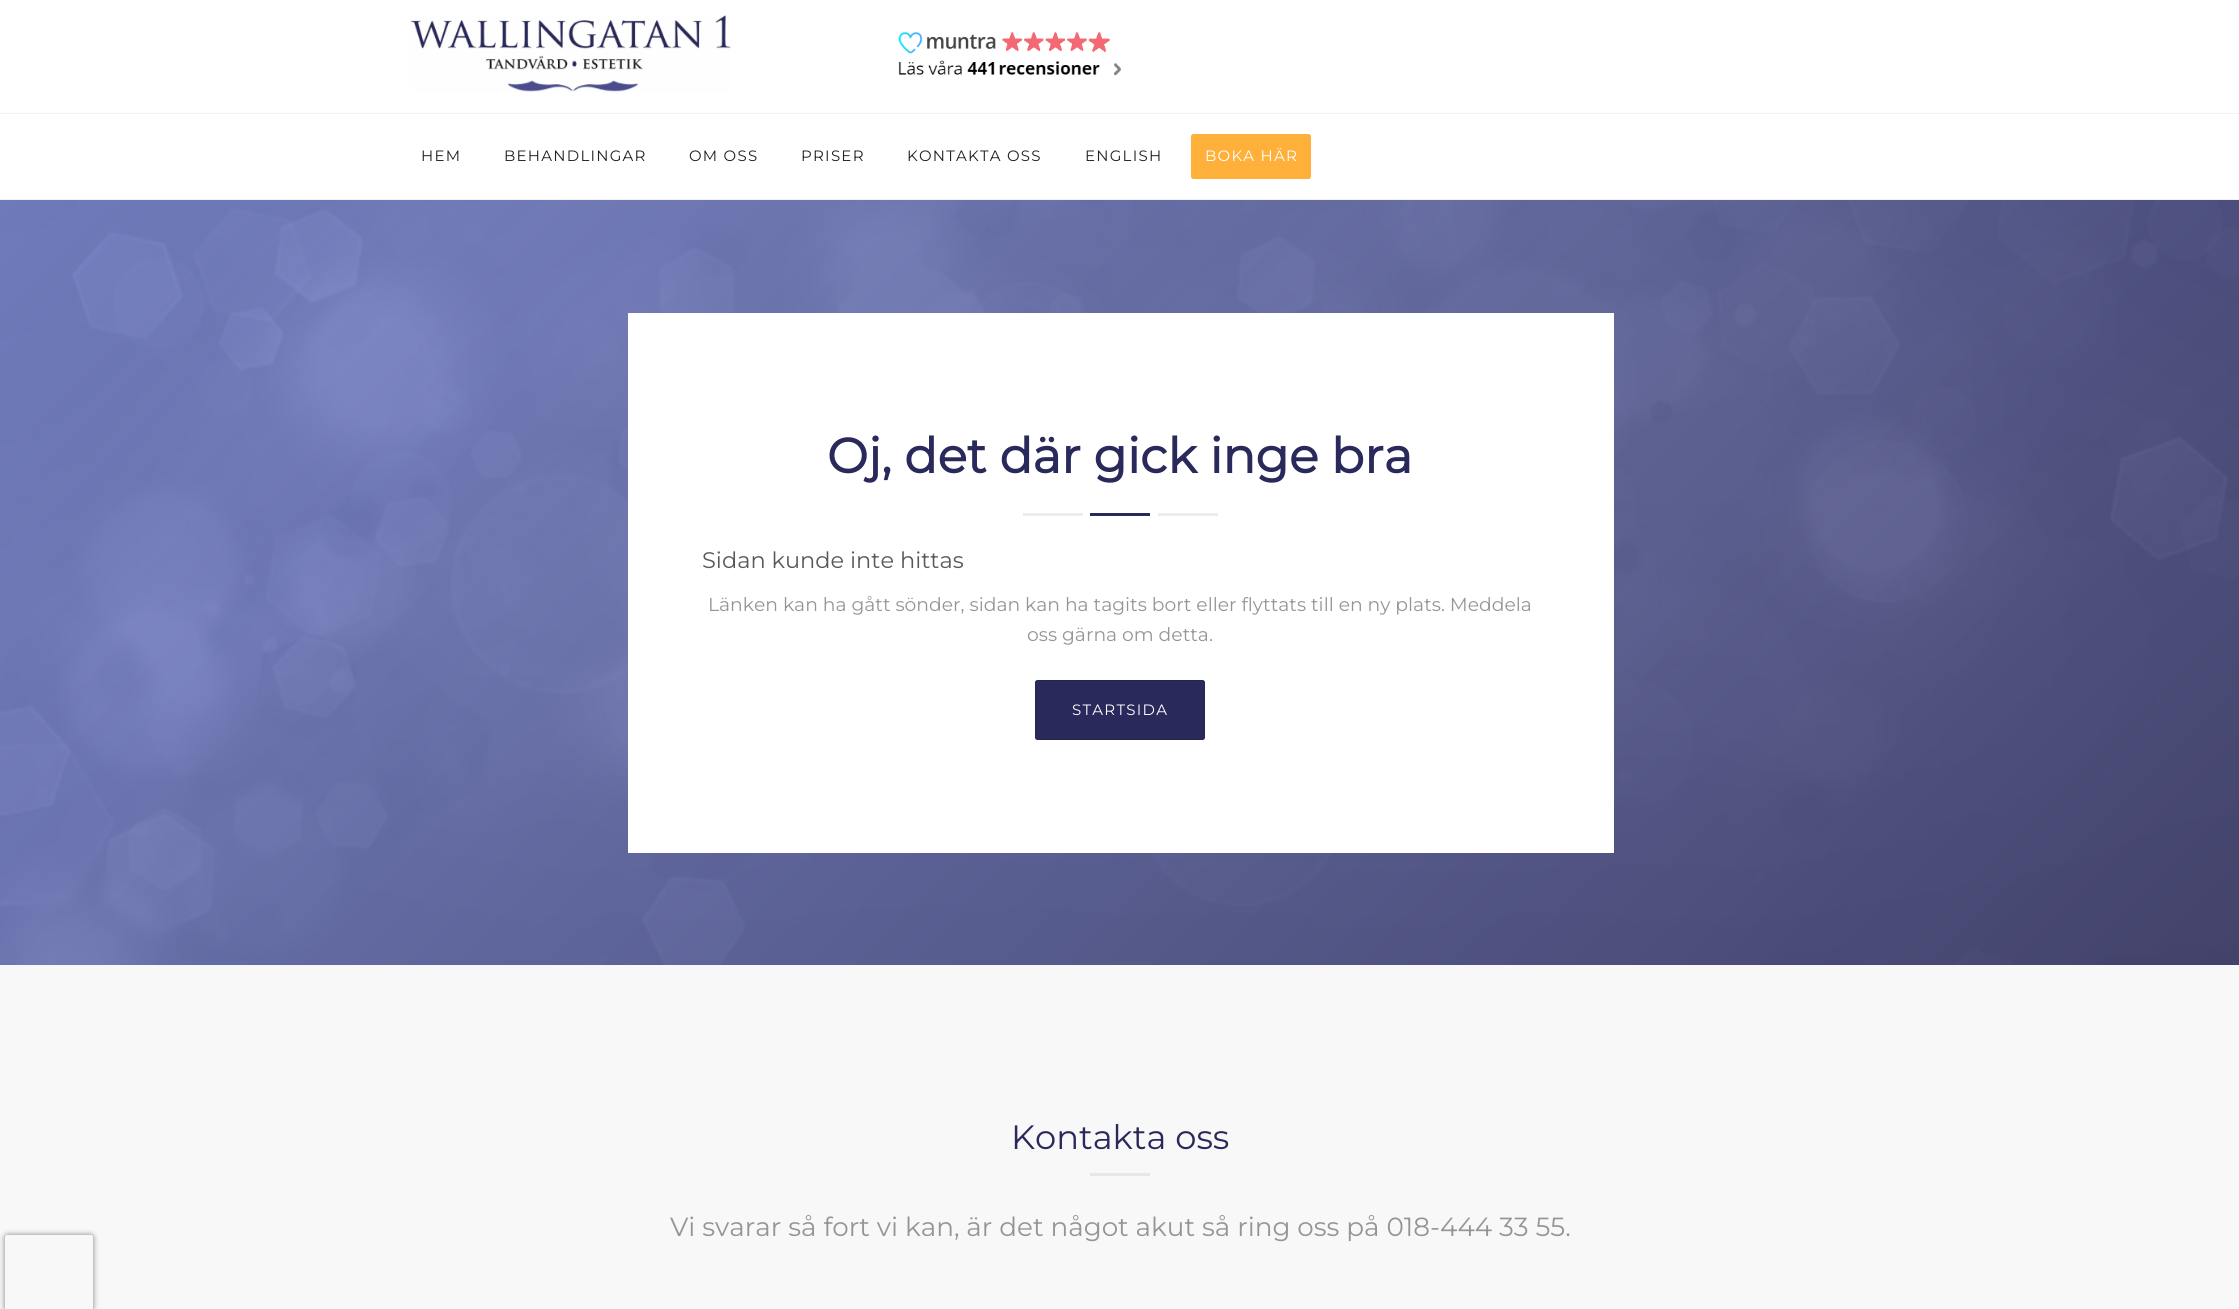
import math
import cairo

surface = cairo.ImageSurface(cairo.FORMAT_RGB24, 2239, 1309)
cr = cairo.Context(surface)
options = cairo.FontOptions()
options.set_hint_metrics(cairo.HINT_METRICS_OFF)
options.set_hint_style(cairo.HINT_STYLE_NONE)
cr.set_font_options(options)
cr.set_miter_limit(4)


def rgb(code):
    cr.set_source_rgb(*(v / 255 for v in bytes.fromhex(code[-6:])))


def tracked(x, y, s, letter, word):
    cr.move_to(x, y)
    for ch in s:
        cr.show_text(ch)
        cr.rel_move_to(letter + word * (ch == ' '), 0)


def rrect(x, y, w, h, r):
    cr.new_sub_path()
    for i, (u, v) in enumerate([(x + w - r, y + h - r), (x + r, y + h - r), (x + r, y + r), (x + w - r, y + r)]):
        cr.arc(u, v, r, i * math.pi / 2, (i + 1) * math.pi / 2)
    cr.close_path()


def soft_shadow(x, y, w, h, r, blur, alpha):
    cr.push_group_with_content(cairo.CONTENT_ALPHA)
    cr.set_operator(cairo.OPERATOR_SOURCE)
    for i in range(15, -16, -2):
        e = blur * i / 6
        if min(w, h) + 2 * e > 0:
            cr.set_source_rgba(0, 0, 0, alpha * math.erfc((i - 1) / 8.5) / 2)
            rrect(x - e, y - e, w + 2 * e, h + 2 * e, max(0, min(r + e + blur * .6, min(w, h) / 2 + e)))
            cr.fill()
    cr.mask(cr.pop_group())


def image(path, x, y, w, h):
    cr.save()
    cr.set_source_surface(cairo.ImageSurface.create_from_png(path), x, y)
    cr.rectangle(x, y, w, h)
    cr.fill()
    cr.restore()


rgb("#ffffff")
cr.paint()
image("img/1.png", 410, 15, 321, 77)
image("img/2.png", 898, 32, 223, 44)
rgb("#f2f2f2")
cr.rectangle(0, 113, 2239, 1)
cr.fill()
cr.rectangle(0, 199, 2239, 1)
cr.fill()
rgb("#ffb03b")
rrect(1191, 134, 120, 45, 2.5)
cr.fill()
image("img/3.png", 0, 200, 2239, 765)
for x, y, w, h, color in [
    (628, 313, 986, 540, "#ffffff"),
    (1023, 513, 60, 3, "#ededed"),
    (1158, 513, 60, 3, "#ededed"),
    (1090, 513, 60, 3, "#29295b"),
]:
    rgb(color)
    cr.rectangle(x, y, w, h)
    cr.fill()
rrect(1035, 680, 170, 60, 2.5)
cr.fill()
rrect(1035.5, 680.5, 169, 59, 2)
cr.set_source_rgba(0, 0, 0, 0.1)
cr.set_line_width(1)
cr.stroke()
rgb("#f8f8f8")
cr.rectangle(0, 965, 2239, 344)
cr.fill()
rgb("#e7e7e7")
cr.rectangle(1090, 1173, 60, 3)
cr.fill()
cr.save()
cr.set_fill_rule(cairo.FILL_RULE_EVEN_ODD)
cr.new_path()
cr.move_to(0, 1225)
cr.line_to(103, 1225)
cr.line_to(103, 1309)
cr.line_to(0, 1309)
cr.close_path()
cr.move_to(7.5, 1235)
cr.line_to(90.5, 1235)
cr.curve_to(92, 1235, 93, 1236, 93, 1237.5)
cr.line_to(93, 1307.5)
cr.curve_to(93, 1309, 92, 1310, 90.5, 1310)
cr.line_to(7.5, 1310)
cr.curve_to(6, 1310, 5, 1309, 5, 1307.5)
cr.line_to(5, 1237.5)
cr.curve_to(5, 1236, 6, 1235, 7.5, 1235)
cr.close_path()
cr.clip()
rgb("#808080")
soft_shadow(5, 1235, 88, 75, 2.5, 3, 1)
cr.restore()
cr.select_font_face("Montserrat Thin")
cr.set_font_size(15)
rgb("#212121")
for x, y, s in [
    (421, 161, "HEM"),
    (504, 161, "BEHANDLINGAR"),
    (689, 161, "OM OSS"),
    (801, 161, "PRISER"),
    (907, 161, "KONTAKTA OSS"),
    (1085, 161, "ENGLISH"),
]:
    tracked(x, y, s, 1.25, 0)
rgb("#ffffff")
tracked(1205, 161, "BOKA HÄR", 1.25, 0)
cr.select_font_face("Montserrat", cairo.FONT_SLANT_NORMAL, cairo.FONT_WEIGHT_BOLD)
cr.set_font_size(48.75)
rgb("#29295b")
cr.move_to(827, 473)
cr.show_text("Oj, det där gick inge bra")
cr.select_font_face("Montserrat Thin")
cr.set_font_size(22.5)
rgb("#595959")
cr.move_to(702, 568)
cr.show_text("Sidan kunde inte hittas")
cr.set_font_size(18.75)
rgb("#959595")
cr.move_to(708, 611)
cr.show_text("Länken kan ha gått sönder, sidan kan ha tagits bort eller flyttats till en ny plats. Meddela")
cr.move_to(1027, 641)
cr.show_text("oss gärna om detta.")
cr.set_font_size(15)
rgb("#ffffff")
tracked(1072, 715, "STARTSIDA", 1.25, 0)
cr.set_font_size(33.75)
rgb("#29295b")
cr.move_to(1011, 1149)
cr.show_text("Kontakta oss")
cr.set_font_size(26.25)
rgb("#959595")
cr.move_to(670, 1236)
cr.show_text("Vi svarar så fort vi kan, är det något akut så ring oss på 018-444 33 55.")
surface.write_to_png("page.png")
